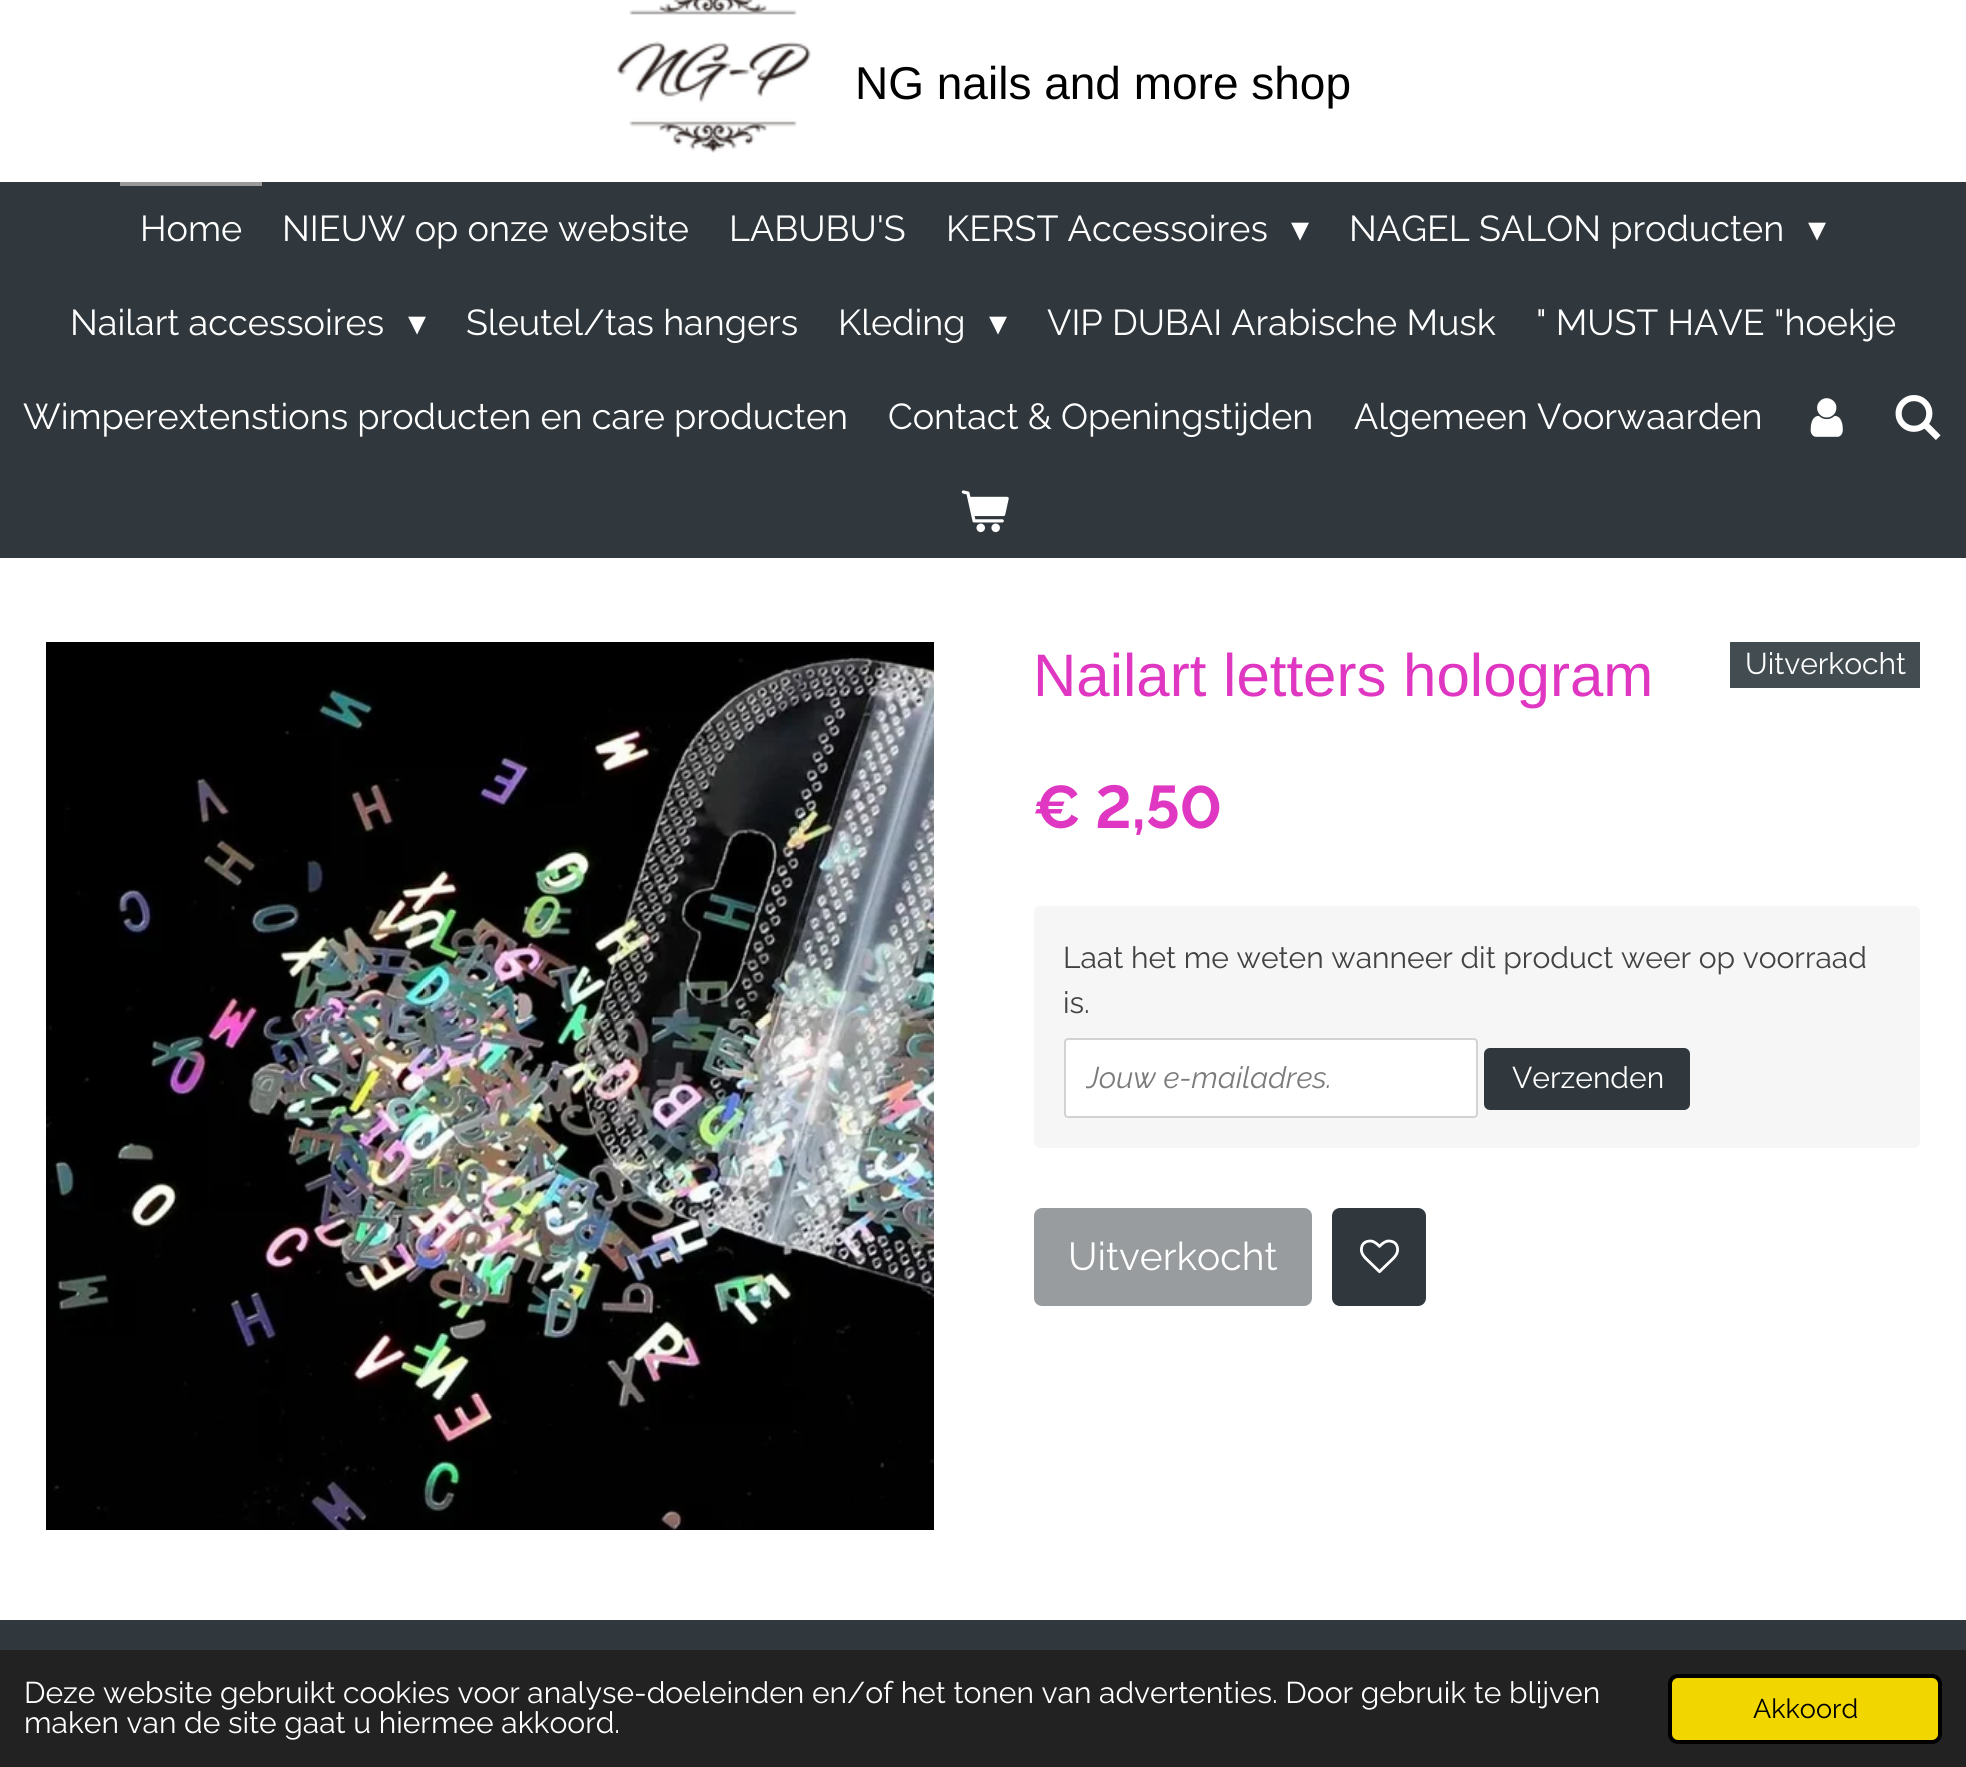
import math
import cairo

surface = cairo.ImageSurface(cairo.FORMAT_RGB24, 1966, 1767)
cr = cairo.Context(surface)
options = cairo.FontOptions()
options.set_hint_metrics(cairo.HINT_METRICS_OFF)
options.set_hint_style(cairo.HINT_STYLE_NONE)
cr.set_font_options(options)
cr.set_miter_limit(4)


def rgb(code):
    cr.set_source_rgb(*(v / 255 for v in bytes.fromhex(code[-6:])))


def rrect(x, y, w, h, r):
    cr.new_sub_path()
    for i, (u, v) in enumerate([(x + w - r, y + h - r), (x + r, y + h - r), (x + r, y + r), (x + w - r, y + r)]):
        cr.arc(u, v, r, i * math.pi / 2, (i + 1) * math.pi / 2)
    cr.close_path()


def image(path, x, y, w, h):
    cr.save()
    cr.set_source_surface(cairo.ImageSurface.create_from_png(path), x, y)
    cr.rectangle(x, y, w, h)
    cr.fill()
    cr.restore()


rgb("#ffffff")
cr.paint()
image("img/1.png", 617, 0, 194, 153)
rgb("#30383d")
cr.rectangle(0, 182, 1966, 376)
cr.fill()
rgb("#999999")
cr.rectangle(120, 182, 142, 4)
cr.fill()
image("img/2.png", 1810, 398, 33, 39)
image("img/3.png", 1895, 395, 46, 45)
image("img/4.png", 961, 490, 48, 43)
image("img/5.png", 46, 642, 888, 888)
rgb("#424c51")
cr.rectangle(1730, 642, 190, 46)
cr.fill()
rgb("#f6f6f6")
rrect(1034, 906, 886, 242, 6)
cr.fill()
rgb("#ffffff")
rrect(1064, 1038, 414, 80, 4)
cr.fill()
rrect(1065, 1039, 412, 78, 3)
cr.set_source_rgba(0.651, 0.651, 0.651, 0.5)
cr.stroke()
rgb("#30383d")
rrect(1484, 1048, 206, 62, 6)
cr.fill()
rgb("#989c9e")
rrect(1034, 1208, 278, 98, 8)
cr.fill()
rgb("#30383d")
rrect(1332, 1208, 94, 98, 8)
cr.fill()
image("img/6.png", 1360, 1239, 39, 35)
cr.rectangle(0, 1620, 1966, 30)
cr.fill()
rgb("#222222")
cr.rectangle(0, 1650, 1966, 117)
cr.fill()
rgb("#f1d600")
rrect(1670, 1676, 270, 66, 8)
cr.fill_preserve()
rgb("#000000")
cr.set_line_width(4)
cr.stroke()
cr.select_font_face("Liberation Sans")
cr.set_font_size(46)
cr.move_to(855, 99)
cr.show_text("NG nails and more shop")
cr.select_font_face("Raleway")
cr.set_font_size(36)
rgb("#ffffff")
for x, y, s in [
    (140, 241, "Home"),
    (282, 241, "NIEUW op onze website"),
    (729, 241, "LABUBU'S"),
    (946, 241, "KERST Accessoires"),
]:
    cr.move_to(x, y)
    cr.show_text(s)
cr.select_font_face("DejaVu Sans")
cr.move_to(1291, 241)
cr.show_text("▾")
cr.select_font_face("Raleway")
cr.move_to(1349, 241)
cr.show_text("NAGEL SALON producten")
cr.select_font_face("DejaVu Sans")
cr.move_to(1808, 241)
cr.show_text("▾")
cr.select_font_face("Raleway")
cr.move_to(70, 335)
cr.show_text("Nailart accessoires")
cr.select_font_face("DejaVu Sans")
cr.move_to(408, 335)
cr.show_text("▾")
cr.select_font_face("Raleway")
cr.move_to(466, 335)
cr.show_text("Sleutel/tas hangers")
cr.move_to(838, 335)
cr.show_text("Kleding")
cr.select_font_face("DejaVu Sans")
cr.move_to(989, 335)
cr.show_text("▾")
cr.select_font_face("Raleway")
for x, y, s in [
    (1047, 335, "VIP DUBAI Arabische Musk"),
    (1536, 335, "\" MUST HAVE \"hoekje"),
    (23, 429, "Wimperextenstions producten en care producten"),
    (888, 429, "Contact & Openingstijden"),
    (1354, 429, "Algemeen Voorwaarden"),
]:
    cr.move_to(x, y)
    cr.show_text(s)
cr.select_font_face("Liberation Sans")
cr.set_font_size(60)
rgb("#df37c1")
cr.move_to(1033, 696)
cr.show_text("Nailart letters hologram")
cr.select_font_face("Raleway")
cr.set_font_size(30)
rgb("#ffffff")
cr.move_to(1745, 674)
cr.show_text("Uitverkocht")
cr.select_font_face("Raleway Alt", cairo.FONT_SLANT_NORMAL, cairo.FONT_WEIGHT_BOLD)
cr.set_font_size(60)
rgb("#df37c1")
cr.move_to(1033, 828)
cr.show_text("€ 2,50")
cr.select_font_face("Raleway")
cr.set_font_size(30)
rgb("#424242")
cr.move_to(1063, 968)
cr.show_text("Laat het me weten wanneer dit product weer op voorraad")
cr.move_to(1063, 1013)
cr.show_text("is.")
cr.save()
cr.rectangle(1086, 1060, 370, 36)
cr.clip()
cr.select_font_face("Raleway", cairo.FONT_SLANT_ITALIC)
rgb("#7b7b7b")
cr.move_to(1085, 1088)
cr.show_text("Jouw e-mailadres.")
cr.restore()
rgb("#ffffff")
cr.move_to(1512, 1088)
cr.show_text("Verzenden")
cr.set_font_size(39)
cr.move_to(1068, 1270)
cr.show_text("Uitverkocht")
cr.set_font_size(30)
cr.move_to(24, 1703)
cr.show_text("Deze website gebruikt cookies voor analyse-doeleinden en/of het tonen van advertenties. Door gebruik te blijven")
cr.move_to(24, 1733)
cr.show_text("maken van de site gaat u hiermee akkoord.")
cr.set_font_size(27)
rgb("#000000")
cr.move_to(1753, 1718)
cr.show_text("Akkoord")
surface.write_to_png("page.png")
